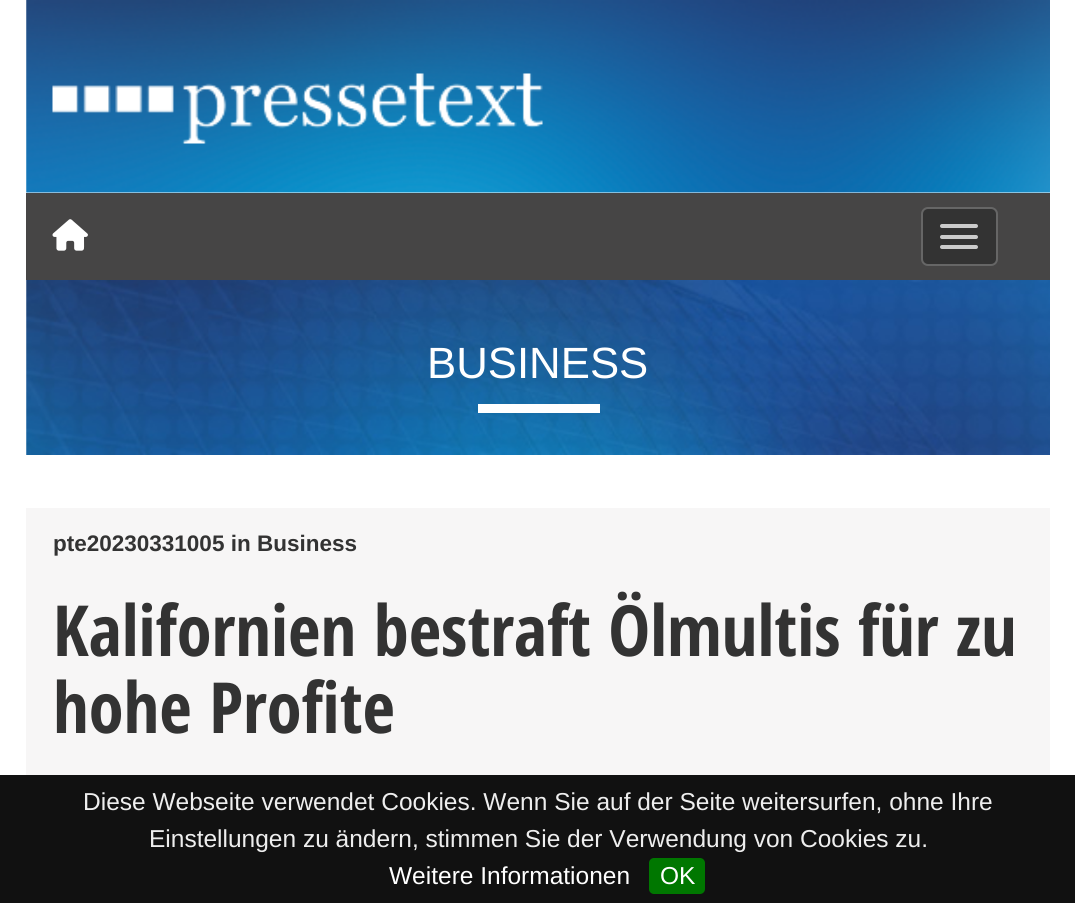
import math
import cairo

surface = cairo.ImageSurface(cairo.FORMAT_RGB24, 1075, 903)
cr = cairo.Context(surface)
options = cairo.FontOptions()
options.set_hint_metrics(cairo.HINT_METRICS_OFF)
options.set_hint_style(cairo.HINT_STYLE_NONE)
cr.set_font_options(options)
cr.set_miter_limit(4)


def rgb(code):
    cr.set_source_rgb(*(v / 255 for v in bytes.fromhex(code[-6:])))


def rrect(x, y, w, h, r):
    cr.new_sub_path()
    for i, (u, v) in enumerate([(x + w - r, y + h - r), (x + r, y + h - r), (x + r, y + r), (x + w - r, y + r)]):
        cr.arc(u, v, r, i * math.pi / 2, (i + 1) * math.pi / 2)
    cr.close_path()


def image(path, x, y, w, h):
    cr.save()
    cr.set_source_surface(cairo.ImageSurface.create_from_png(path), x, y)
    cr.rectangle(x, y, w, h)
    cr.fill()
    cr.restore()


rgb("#ffffff")
cr.paint()
image("img/1.png", 26, 0, 1024, 193)
image("img/2.png", 52, 73, 491, 71)
rgb("#464545")
cr.rectangle(26, 193, 1024, 87)
cr.fill()
image("img/3.png", 52, 219, 36, 32)
rgb("#333333")
rrect(922, 208, 75, 57, 6)
cr.fill_preserve()
rgb("#666666")
cr.stroke()
rgb("#cccccc")
rrect(940, 224, 38, 4, 2)
cr.fill()
rrect(940, 235, 38, 4, 2)
cr.fill()
rrect(940, 245, 38, 4, 2)
cr.fill()
image("img/4.png", 26, 280, 1024, 175)
for x, y, w, h, color in [
    (478, 404, 122, 9, "#ffffff"),
    (26, 508, 1024, 267, "#f7f6f6"),
    (0, 775, 1075, 128, "#111111"),
]:
    rgb(color)
    cr.rectangle(x, y, w, h)
    cr.fill()
rgb("#007700")
rrect(649, 858, 56, 36, 5)
cr.fill()
cr.select_font_face("Liberation Sans")
cr.set_font_size(43.75)
rgb("#ffffff")
cr.move_to(427, 378)
cr.show_text("BUSINESS")
cr.select_font_face("Liberation Sans", cairo.FONT_SLANT_NORMAL, cairo.FONT_WEIGHT_BOLD)
cr.set_font_size(22.5)
rgb("#333333")
cr.move_to(53, 551)
cr.show_text("pte20230331005 in Business")
cr.select_font_face("Open Sans Condensed", cairo.FONT_SLANT_NORMAL, cairo.FONT_WEIGHT_BOLD)
cr.set_font_size(70.5)
cr.move_to(53, 656)
cr.show_text("Kalifornien bestraft Ölmultis für zu")
cr.move_to(53, 733)
cr.show_text("hohe Profite")
cr.select_font_face("Liberation Sans")
cr.set_font_size(24.5)
rgb("#eeeeee")
cr.move_to(83, 810)
cr.show_text("Diese Webseite verwendet Cookies. Wenn Sie auf der Seite weitersurfen, ohne Ihre")
cr.move_to(149, 847)
cr.show_text("Einstellungen zu ändern, stimmen Sie der Verwendung von Cookies zu.")
rgb("#ffffff")
cr.move_to(389, 884)
cr.show_text("Weitere Informationen")
cr.move_to(660, 884)
cr.show_text("OK")
surface.write_to_png("page.png")
